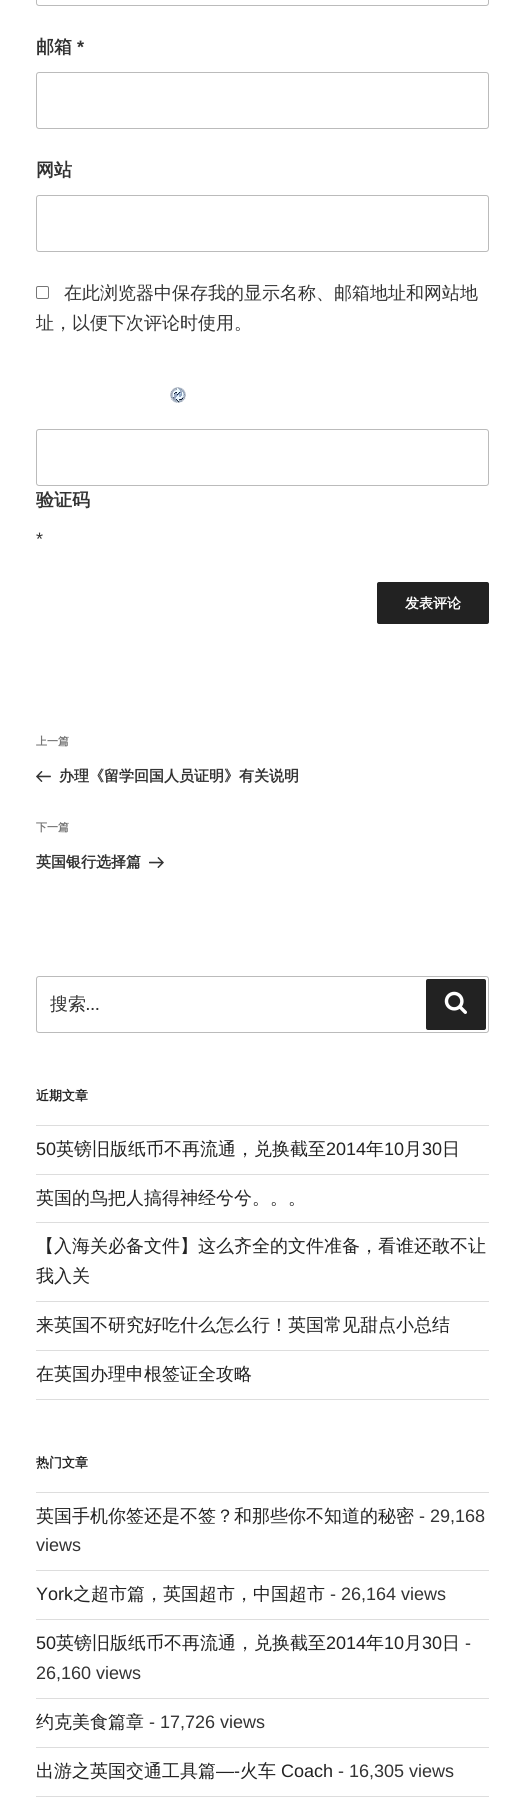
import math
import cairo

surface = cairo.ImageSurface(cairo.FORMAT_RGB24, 525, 1805)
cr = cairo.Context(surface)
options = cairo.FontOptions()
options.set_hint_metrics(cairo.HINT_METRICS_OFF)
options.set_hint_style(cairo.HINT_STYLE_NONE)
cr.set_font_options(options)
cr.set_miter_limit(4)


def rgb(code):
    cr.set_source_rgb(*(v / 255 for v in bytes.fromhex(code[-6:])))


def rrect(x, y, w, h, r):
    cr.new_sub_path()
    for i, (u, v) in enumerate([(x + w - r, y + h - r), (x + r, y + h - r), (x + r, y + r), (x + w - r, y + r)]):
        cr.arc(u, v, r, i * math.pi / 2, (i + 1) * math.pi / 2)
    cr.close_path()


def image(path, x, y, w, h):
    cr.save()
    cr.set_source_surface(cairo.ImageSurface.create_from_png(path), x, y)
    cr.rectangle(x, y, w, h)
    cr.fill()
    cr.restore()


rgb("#ffffff")
cr.paint()
rrect(36.5, -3.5, 452, 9, 2.5)
rgb("#bbbbbb")
cr.set_line_width(1)
cr.stroke()
rrect(36.5, 72.5, 452, 56, 2.5)
cr.stroke()
rrect(36.5, 195.5, 452, 56, 2.5)
cr.stroke()
rrect(36.5, 286.5, 12, 12, 1.5)
rgb("#767676")
cr.stroke()
image("img/1.png", 170, 387, 16, 16)
rrect(36.5, 429.5, 452, 56, 2.5)
rgb("#bbbbbb")
cr.stroke()
rgb("#222222")
rrect(377, 582, 112, 42, 2)
cr.fill()
image("img/2.png", 36, 771, 15, 11)
image("img/3.png", 149, 857, 15, 12)
rrect(36.5, 976.5, 452, 56, 2.5)
rgb("#bbbbbb")
cr.stroke()
rgb("#222222")
rrect(426, 979, 60, 51, 2)
cr.fill()
image("img/4.png", 444, 991, 23, 23)
for x, y, w, h, color in [
    (36, 1125, 453, 1, "#dddddd"),
    (36, 1174, 453, 1, "#dddddd"),
    (36, 1222, 453, 1, "#dddddd"),
    (36, 1301, 453, 1, "#dddddd"),
    (36, 1350, 453, 1, "#dddddd"),
    (36, 1399, 453, 1, "#dddddd"),
    (36, 1492, 453, 1, "#dddddd"),
    (36, 1570, 453, 1, "#dddddd"),
    (36, 1619, 453, 1, "#dddddd"),
    (36, 1698, 453, 1, "#dddddd"),
    (36, 1747, 453, 1, "#dddddd"),
    (36, 1796, 453, 1, "#dddddd"),
]:
    rgb(color)
    cr.rectangle(x, y, w, h)
    cr.fill()
cr.select_font_face("WenQuanYi Zen Hei", cairo.FONT_SLANT_NORMAL, cairo.FONT_WEIGHT_BOLD)
cr.set_font_size(18)
rgb("#333333")
cr.move_to(36, 53)
cr.show_text("邮箱")
cr.select_font_face("Liberation Sans", cairo.FONT_SLANT_NORMAL, cairo.FONT_WEIGHT_BOLD)
cr.move_to(77, 53)
cr.show_text("*")
cr.select_font_face("WenQuanYi Zen Hei", cairo.FONT_SLANT_NORMAL, cairo.FONT_WEIGHT_BOLD)
cr.move_to(36, 176)
cr.show_text("网站")
cr.select_font_face("WenQuanYi Zen Hei Medium")
cr.move_to(64, 299)
cr.show_text("在此浏览器中保存我的显示名称、邮箱地址和网站地")
cr.move_to(36, 329)
cr.show_text("址，以便下次评论时使用。")
cr.select_font_face("WenQuanYi Zen Hei", cairo.FONT_SLANT_NORMAL, cairo.FONT_WEIGHT_BOLD)
cr.move_to(36, 506)
cr.show_text("验证码")
cr.select_font_face("Liberation Sans")
cr.move_to(36, 545)
cr.show_text("*")
cr.select_font_face("WenQuanYi Zen Hei", cairo.FONT_SLANT_NORMAL, cairo.FONT_WEIGHT_BOLD)
cr.set_font_size(14)
rgb("#ffffff")
cr.move_to(405, 608)
cr.show_text("发表评论")
cr.set_font_size(11)
rgb("#767676")
cr.move_to(36, 745)
cr.show_text("上一篇")
cr.set_font_size(15)
rgb("#333333")
cr.move_to(59, 781)
cr.show_text("办理《留学回国人员证明》有关说明")
cr.set_font_size(11)
rgb("#767676")
cr.move_to(36, 831)
cr.show_text("下一篇")
cr.set_font_size(15)
rgb("#333333")
cr.move_to(36, 867)
cr.show_text("英国银行选择篇")
cr.select_font_face("WenQuanYi Zen Hei Medium")
cr.set_font_size(18)
cr.move_to(50, 1010)
cr.show_text("搜索")
cr.select_font_face("Libre Franklin")
cr.move_to(86, 1010)
cr.show_text("…")
cr.select_font_face("WenQuanYi Zen Hei", cairo.FONT_SLANT_NORMAL, cairo.FONT_WEIGHT_BOLD)
cr.set_font_size(13)
rgb("#222222")
cr.move_to(36, 1100)
cr.show_text("近期文章")
cr.select_font_face("Liberation Sans")
cr.set_font_size(18)
cr.move_to(36, 1155)
cr.show_text("50")
cr.select_font_face("WenQuanYi Zen Hei Medium")
cr.move_to(56, 1155)
cr.show_text("英镑旧版纸币不再流通，兑换截至")
cr.select_font_face("Liberation Sans")
cr.move_to(326, 1155)
cr.show_text("2014")
cr.select_font_face("WenQuanYi Zen Hei Medium")
cr.move_to(366, 1155)
cr.show_text("年")
cr.select_font_face("Liberation Sans")
cr.move_to(384, 1155)
cr.show_text("10")
cr.select_font_face("WenQuanYi Zen Hei Medium")
cr.move_to(404, 1155)
cr.show_text("月")
cr.select_font_face("Liberation Sans")
cr.move_to(422, 1155)
cr.show_text("30")
cr.select_font_face("WenQuanYi Zen Hei Medium")
for x, y, s in [
    (442, 1155, "日"),
    (36, 1204, "英国的鸟把人搞得神经兮兮。。。"),
    (36, 1252, "【入海关必备文件】这么齐全的文件准备，看谁还敢不让"),
    (36, 1282, "我入关"),
    (36, 1331, "来英国不研究好吃什么怎么行！英国常见甜点小总结"),
    (36, 1380, "在英国办理申根签证全攻略"),
]:
    cr.move_to(x, y)
    cr.show_text(s)
cr.select_font_face("WenQuanYi Zen Hei", cairo.FONT_SLANT_NORMAL, cairo.FONT_WEIGHT_BOLD)
cr.set_font_size(13)
cr.move_to(36, 1467)
cr.show_text("热门文章")
cr.select_font_face("WenQuanYi Zen Hei Medium")
cr.set_font_size(18)
cr.move_to(36, 1522)
cr.show_text("英国手机你签还是不签？和那些你不知道的秘密")
cr.select_font_face("Liberation Sans")
rgb("#333333")
cr.move_to(419, 1522)
cr.show_text("- 29,168")
cr.move_to(36, 1551)
cr.show_text("views")
rgb("#222222")
cr.move_to(36, 1600)
cr.show_text("York")
cr.select_font_face("WenQuanYi Zen Hei Medium")
cr.move_to(73, 1600)
cr.show_text("之超市篇，英国超市，中国超市")
cr.select_font_face("Liberation Sans")
rgb("#333333")
cr.move_to(330, 1600)
cr.show_text("- 26,164 views")
rgb("#222222")
cr.move_to(36, 1649)
cr.show_text("50")
cr.select_font_face("WenQuanYi Zen Hei Medium")
cr.move_to(56, 1649)
cr.show_text("英镑旧版纸币不再流通，兑换截至")
cr.select_font_face("Liberation Sans")
cr.move_to(326, 1649)
cr.show_text("2014")
cr.select_font_face("WenQuanYi Zen Hei Medium")
cr.move_to(366, 1649)
cr.show_text("年")
cr.select_font_face("Liberation Sans")
cr.move_to(384, 1649)
cr.show_text("10")
cr.select_font_face("WenQuanYi Zen Hei Medium")
cr.move_to(404, 1649)
cr.show_text("月")
cr.select_font_face("Liberation Sans")
cr.move_to(422, 1649)
cr.show_text("30")
cr.select_font_face("WenQuanYi Zen Hei Medium")
cr.move_to(442, 1649)
cr.show_text("日")
cr.select_font_face("Liberation Sans")
rgb("#333333")
cr.move_to(465, 1649)
cr.show_text("-")
cr.move_to(36, 1679)
cr.show_text("26,160 views")
cr.select_font_face("WenQuanYi Zen Hei Medium")
rgb("#222222")
cr.move_to(36, 1728)
cr.show_text("约克美食篇章")
cr.select_font_face("Liberation Sans")
rgb("#333333")
cr.move_to(149, 1728)
cr.show_text("- 17,726 views")
cr.select_font_face("WenQuanYi Zen Hei Medium")
rgb("#222222")
cr.move_to(36, 1777)
cr.show_text("出游之英国交通工具篇")
cr.select_font_face("Liberation Sans")
cr.move_to(216, 1777)
cr.show_text("—-")
cr.select_font_face("WenQuanYi Zen Hei Medium")
cr.move_to(240, 1777)
cr.show_text("火车")
cr.select_font_face("Liberation Sans")
cr.move_to(281, 1777)
cr.show_text("Coach")
rgb("#333333")
cr.move_to(338, 1777)
cr.show_text("- 16,305 views")
surface.write_to_png("page.png")
